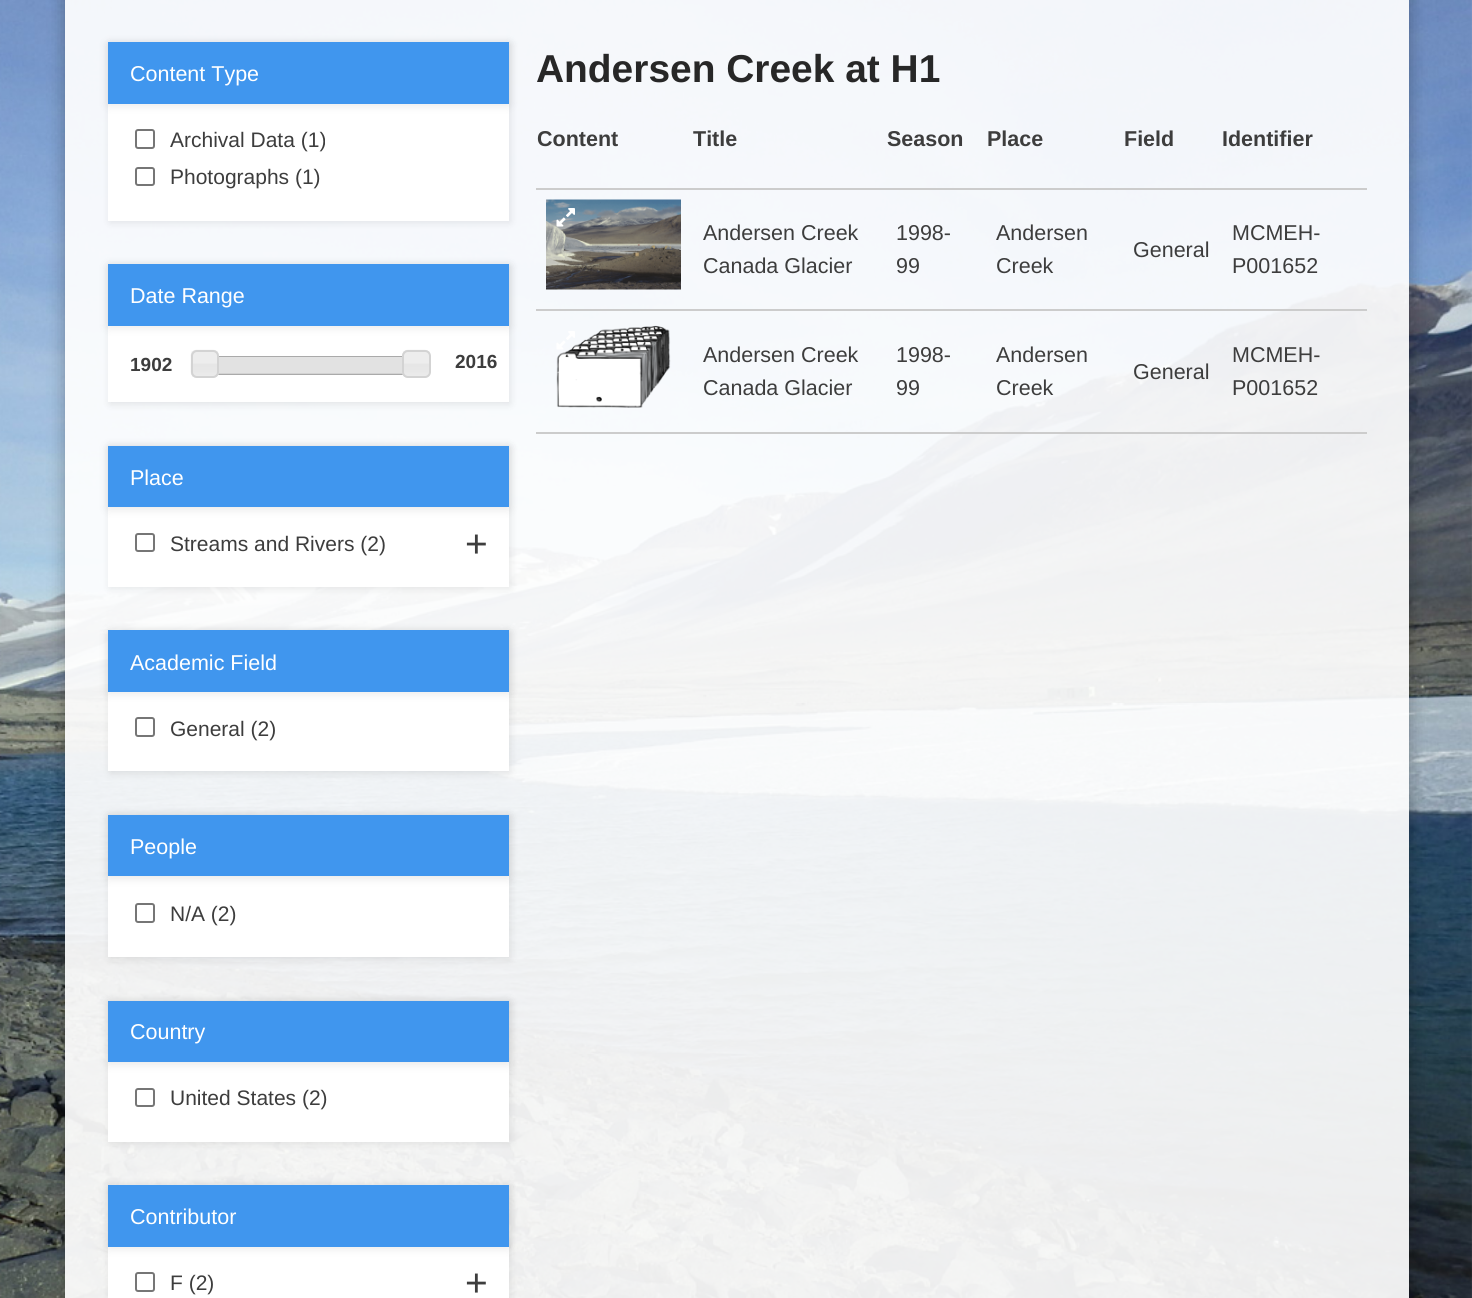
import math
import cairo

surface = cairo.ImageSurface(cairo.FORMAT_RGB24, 1472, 1298)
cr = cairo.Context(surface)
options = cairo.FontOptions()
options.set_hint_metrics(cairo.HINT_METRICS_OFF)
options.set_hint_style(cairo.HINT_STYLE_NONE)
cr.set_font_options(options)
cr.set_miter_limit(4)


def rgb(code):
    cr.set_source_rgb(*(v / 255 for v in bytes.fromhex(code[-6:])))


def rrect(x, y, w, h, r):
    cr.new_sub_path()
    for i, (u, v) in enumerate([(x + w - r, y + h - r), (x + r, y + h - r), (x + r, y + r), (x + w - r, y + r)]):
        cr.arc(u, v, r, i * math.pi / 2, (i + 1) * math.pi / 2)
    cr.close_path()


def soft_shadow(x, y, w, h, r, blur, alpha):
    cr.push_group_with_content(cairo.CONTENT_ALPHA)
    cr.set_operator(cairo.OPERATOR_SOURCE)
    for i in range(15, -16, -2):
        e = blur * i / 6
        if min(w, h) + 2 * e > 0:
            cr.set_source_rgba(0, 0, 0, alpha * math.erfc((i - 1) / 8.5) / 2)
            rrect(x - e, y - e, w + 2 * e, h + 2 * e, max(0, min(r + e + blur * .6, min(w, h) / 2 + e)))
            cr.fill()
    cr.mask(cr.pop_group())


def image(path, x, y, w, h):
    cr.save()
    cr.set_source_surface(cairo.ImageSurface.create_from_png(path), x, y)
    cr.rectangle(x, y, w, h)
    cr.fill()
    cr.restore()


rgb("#ffffff")
cr.paint()
image("img/1.png", 0, 0, 1472, 1298)
cr.save()
cr.set_fill_rule(cairo.FILL_RULE_EVEN_ODD)
cr.new_path()
cr.move_to(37, 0)
cr.line_to(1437, 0)
cr.line_to(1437, 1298)
cr.line_to(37, 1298)
cr.close_path()
cr.move_to(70, -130)
cr.line_to(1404, -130)
cr.curve_to(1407, -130, 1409, -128, 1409, -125)
cr.line_to(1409, 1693)
cr.curve_to(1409, 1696, 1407, 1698, 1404, 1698)
cr.line_to(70, 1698)
cr.curve_to(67, 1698, 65, 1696, 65, 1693)
cr.line_to(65, -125)
cr.curve_to(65, -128, 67, -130, 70, -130)
cr.close_path()
cr.clip()
rgb("#000000")
soft_shadow(65, -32, 1344, 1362, 5, 9, 0.3)
cr.restore()
cr.set_source_rgba(1, 1, 1, 0.92)
cr.rectangle(65, 0, 1344, 1298)
cr.fill()
rgb("#000000")
soft_shadow(110, 44, 400, 178, 0, 4, 0.1)
rgb("#ffffff")
cr.rectangle(108, 104, 401, 117)
cr.fill()
rgb("#000000")
soft_shadow(108, 44, 401, 61, 0, 5, 0.1)
rgb("#4096ee")
cr.rectangle(108, 42, 401, 62)
cr.fill()
rrect(136, 130, 18, 18, 2)
rgb("#767676")
cr.stroke()
rrect(136, 168, 18, 17, 2)
cr.stroke()
rgb("#000000")
soft_shadow(110, 266, 400, 138, 0, 4, 0.1)
rgb("#ffffff")
cr.rectangle(108, 326, 401, 76)
cr.fill()
rgb("#000000")
soft_shadow(108, 266, 401, 61, 0, 5, 0.1)
rgb("#4096ee")
cr.rectangle(108, 264, 401, 62)
cr.fill()
cr.rectangle(205, 357, 213, 17)
rgb("#aaaaaa")
cr.stroke()
rgb("#cccccc")
cr.rectangle(218, 373, 185, 1)
cr.fill()
image("img/3.png", 218, 357, 185, 17)
image("img/2.png", 190, 349, 29, 29)
rrect(192, 351, 26, 26, 5)
rgb("#d3d3d3")
cr.stroke()
image("img/4.png", 402, 349, 28, 29)
rrect(403, 351, 27, 26, 5)
cr.stroke()
rgb("#000000")
soft_shadow(110, 447, 400, 141, 0, 4, 0.1)
rgb("#ffffff")
cr.rectangle(108, 507, 401, 80)
cr.fill()
rgb("#000000")
soft_shadow(108, 447, 401, 62, 0, 5, 0.1)
rgb("#4096ee")
cr.rectangle(108, 446, 401, 61)
cr.fill()
rrect(136, 534, 18, 17, 2)
rgb("#767676")
cr.stroke()
rgb("#000000")
soft_shadow(110, 632, 400, 141, 0, 4, 0.1)
rgb("#ffffff")
cr.rectangle(108, 692, 401, 79)
cr.fill()
rgb("#000000")
soft_shadow(108, 632, 401, 61, 0, 5, 0.1)
rgb("#4096ee")
cr.rectangle(108, 630, 401, 62)
cr.fill()
rrect(136, 718, 18, 18, 2)
rgb("#767676")
cr.stroke()
rgb("#000000")
soft_shadow(110, 816, 400, 143, 0, 4, 0.1)
rgb("#ffffff")
cr.rectangle(108, 876, 401, 81)
cr.fill()
rgb("#000000")
soft_shadow(108, 816, 401, 62, 0, 5, 0.1)
rgb("#4096ee")
cr.rectangle(108, 815, 401, 61)
cr.fill()
rrect(136, 904, 18, 18, 2)
rgb("#767676")
cr.stroke()
rgb("#000000")
soft_shadow(110, 1002, 400, 141, 0, 4, 0.1)
rgb("#ffffff")
cr.rectangle(108, 1062, 401, 80)
cr.fill()
rgb("#000000")
soft_shadow(108, 1002, 401, 62, 0, 5, 0.1)
rgb("#4096ee")
cr.rectangle(108, 1001, 401, 61)
cr.fill()
rrect(136, 1089, 18, 17, 2)
rgb("#767676")
cr.stroke()
rgb("#000000")
soft_shadow(110, 1187, 400, 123, 0, 4, 0.1)
rgb("#ffffff")
cr.rectangle(108, 1247, 401, 51)
cr.fill()
rgb("#000000")
soft_shadow(108, 1187, 401, 61, 0, 5, 0.1)
rgb("#4096ee")
cr.rectangle(108, 1185, 401, 62)
cr.fill()
rrect(136, 1273, 18, 18, 2)
rgb("#767676")
cr.stroke()
rgb("#cccccc")
cr.rectangle(536, 188, 831, 2)
cr.fill()
cr.rectangle(536, 309, 831, 2)
cr.fill()
image("img/5.png", 546, 199, 135, 91)
image("img/6.png", 556, 208, 19, 19)
cr.rectangle(536, 432, 831, 2)
cr.fill()
image("img/7.png", 556, 325, 115, 83)
image("img/8.png", 556, 331, 19, 19)
cr.select_font_face("Liberation Sans")
cr.set_font_size(21.5)
rgb("#ffffff")
cr.move_to(130, 81)
cr.show_text("Content Type")
cr.set_font_size(21)
rgb("#3d3d3d")
cr.move_to(170, 147)
cr.show_text("Archival Data (1)")
cr.move_to(170, 184)
cr.show_text("Photographs (1)")
cr.set_font_size(21.5)
rgb("#ffffff")
cr.move_to(130, 303)
cr.show_text("Date Range")
cr.select_font_face("Liberation Sans", cairo.FONT_SLANT_NORMAL, cairo.FONT_WEIGHT_BOLD)
cr.set_font_size(19)
rgb("#3d3d3d")
cr.move_to(130, 371)
cr.show_text("1902")
cr.move_to(455, 368)
cr.show_text("2016")
cr.select_font_face("Liberation Sans")
cr.set_font_size(21.5)
rgb("#ffffff")
cr.move_to(130, 485)
cr.show_text("Place")
cr.set_font_size(21)
rgb("#3d3d3d")
cr.move_to(170, 551)
cr.show_text("Streams and Rivers (2)")
cr.set_font_size(38.9)
cr.move_to(465, 557)
cr.show_text("+")
cr.set_font_size(21.5)
rgb("#ffffff")
cr.move_to(130, 670)
cr.show_text("Academic Field")
cr.set_font_size(21)
rgb("#3d3d3d")
cr.move_to(170, 736)
cr.show_text("General (2)")
cr.set_font_size(21.5)
rgb("#ffffff")
cr.move_to(130, 854)
cr.show_text("People")
cr.set_font_size(21)
rgb("#3d3d3d")
cr.move_to(170, 921)
cr.show_text("N/A (2)")
cr.set_font_size(21.5)
rgb("#ffffff")
cr.move_to(130, 1039)
cr.show_text("Country")
cr.set_font_size(21)
rgb("#3d3d3d")
cr.move_to(170, 1105)
cr.show_text("United States (2)")
cr.set_font_size(21.5)
rgb("#ffffff")
cr.move_to(130, 1224)
cr.show_text("Contributor")
cr.set_font_size(21)
rgb("#3d3d3d")
cr.move_to(170, 1290)
cr.show_text("F (2)")
cr.set_font_size(38.9)
cr.move_to(465, 1296)
cr.show_text("+")
cr.select_font_face("Liberation Sans", cairo.FONT_SLANT_NORMAL, cairo.FONT_WEIGHT_BOLD)
rgb("#272727")
cr.move_to(536, 82)
cr.show_text("Andersen Creek at H1")
cr.set_font_size(21.5)
rgb("#3d3d3d")
for x, y, s in [
    (537, 146, "Content"),
    (693, 146, "Title"),
    (887, 146, "Season"),
    (987, 146, "Place"),
    (1124, 146, "Field"),
    (1222, 146, "Identifier"),
]:
    cr.move_to(x, y)
    cr.show_text(s)
cr.select_font_face("Liberation Sans")
for x, y, s in [
    (703, 240, "Andersen Creek"),
    (703, 273, "Canada Glacier"),
    (896, 240, "1998-"),
    (896, 273, "99"),
    (996, 240, "Andersen"),
    (996, 273, "Creek"),
    (1133, 257, "General"),
    (1232, 240, "MCMEH-"),
    (1232, 273, "P001652"),
    (703, 362, "Andersen Creek"),
    (703, 395, "Canada Glacier"),
    (896, 362, "1998-"),
    (896, 395, "99"),
    (996, 362, "Andersen"),
    (996, 395, "Creek"),
    (1133, 379, "General"),
    (1232, 362, "MCMEH-"),
    (1232, 395, "P001652"),
]:
    cr.move_to(x, y)
    cr.show_text(s)
surface.write_to_png("page.png")
